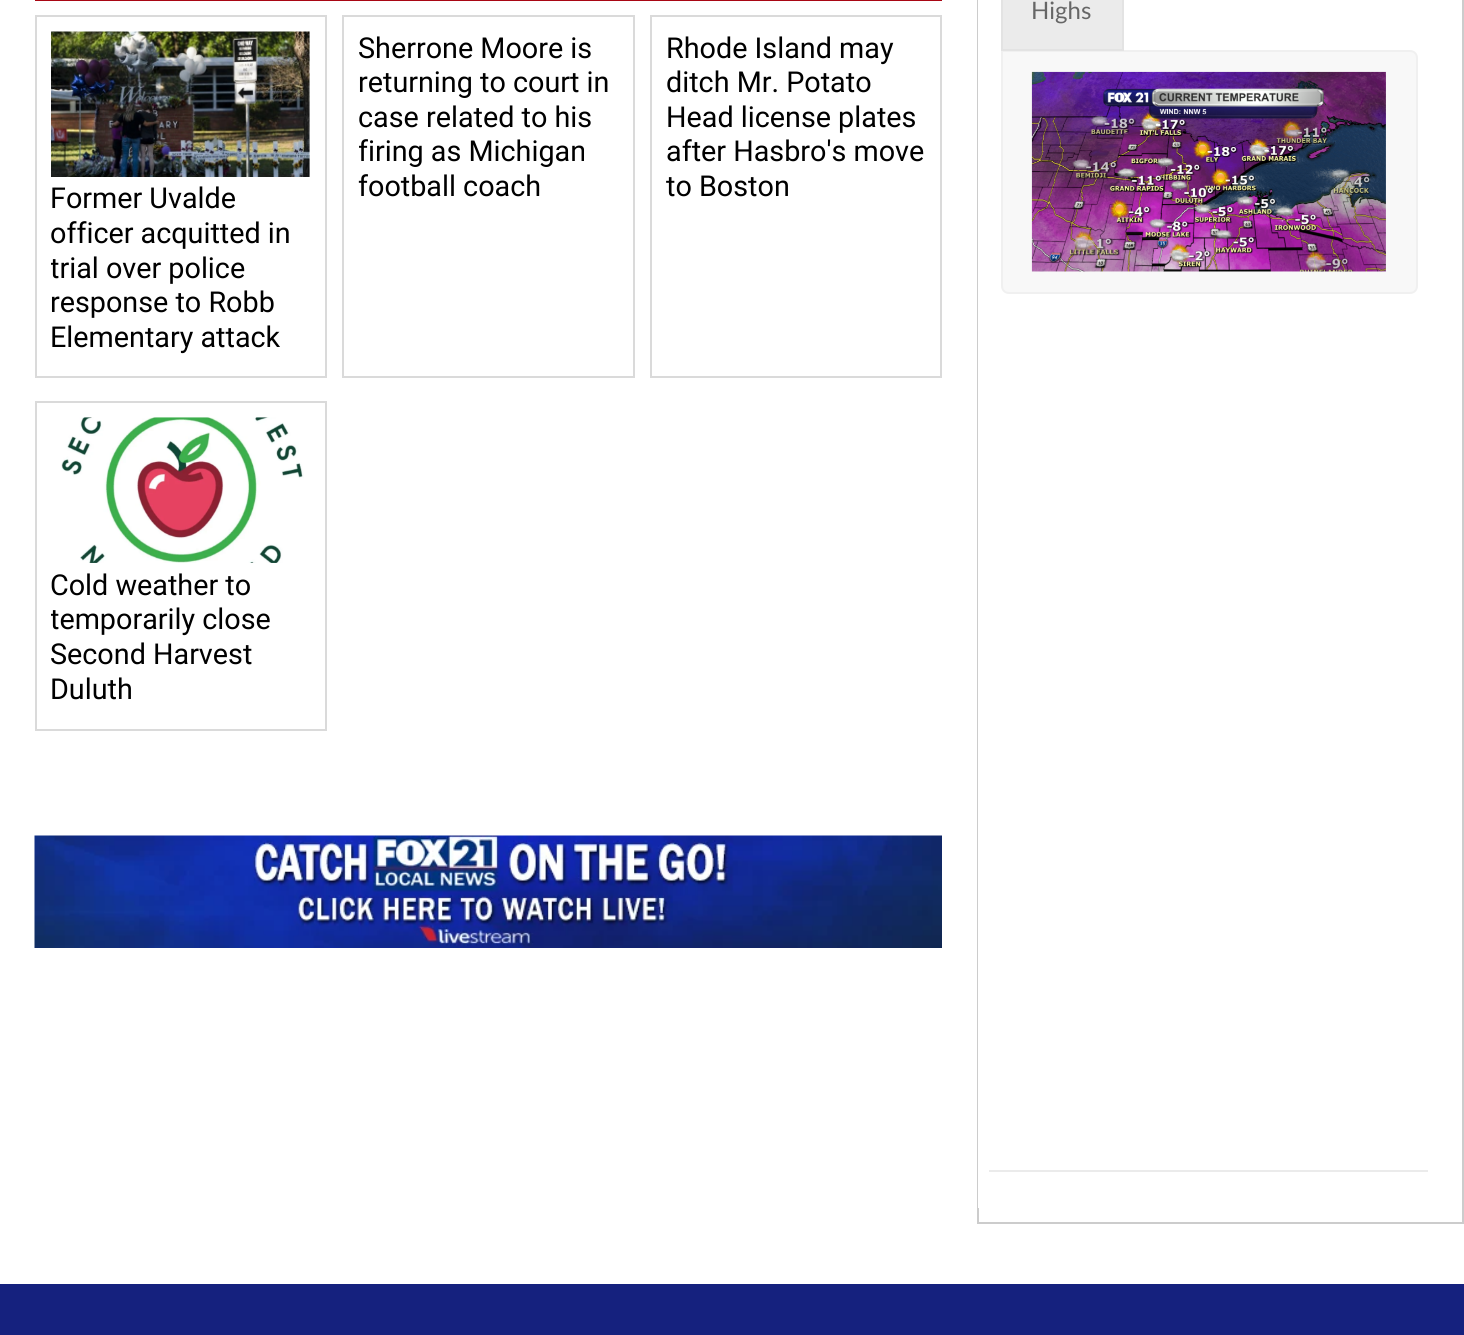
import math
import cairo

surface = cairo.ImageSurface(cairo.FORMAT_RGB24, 1464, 1335)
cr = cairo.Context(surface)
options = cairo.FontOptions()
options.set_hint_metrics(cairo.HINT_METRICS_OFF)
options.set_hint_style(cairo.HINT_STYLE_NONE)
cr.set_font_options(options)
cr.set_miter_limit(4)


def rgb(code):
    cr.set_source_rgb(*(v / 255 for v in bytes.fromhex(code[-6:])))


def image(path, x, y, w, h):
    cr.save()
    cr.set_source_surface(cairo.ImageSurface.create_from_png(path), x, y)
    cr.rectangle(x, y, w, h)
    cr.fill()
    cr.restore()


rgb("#ffffff")
cr.paint()
cr.rectangle(978, -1, 485, 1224)
rgb("#cccccc")
cr.stroke()
rgb("#ffffff")
cr.rectangle(978, 0, 1, 1208)
cr.fill()
rgb("#f8f8f8")
cr.new_path()
cr.move_to(1002, 51)
cr.line_to(1410, 51)
cr.curve_to(1414, 51, 1417, 54, 1417, 58)
cr.line_to(1417, 286)
cr.curve_to(1417, 290, 1414, 293, 1410, 293)
cr.line_to(1009, 293)
cr.curve_to(1005, 293, 1002, 290, 1002, 286)
cr.close_path()
cr.fill_preserve()
rgb("#f0f0f0")
cr.stroke()
rgb("#ebebeb")
cr.rectangle(1002, -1, 121, 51)
cr.fill_preserve()
rgb("#e3e3e3")
cr.stroke()
image("img/1.png", 1031, 71, 355, 201)
rgb("#ebebeb")
cr.rectangle(989, 1170, 439, 2)
cr.fill()
rgb("#a90714")
cr.rectangle(35, 0, 907, 1)
cr.fill()
cr.rectangle(343, 16, 291, 361)
rgb("#dadada")
cr.stroke()
cr.rectangle(651, 16, 290, 361)
cr.stroke()
cr.rectangle(36, 16, 290, 361)
cr.stroke()
image("img/2.png", 51, 31, 259, 146)
cr.rectangle(36, 402, 290, 328)
cr.stroke()
image("img/3.png", 61, 417, 243, 146)
image("img/4.png", 34, 835, 908, 113)
rgb("#15217e")
cr.rectangle(0, 1284, 1464, 51)
cr.fill()
cr.select_font_face("Lato")
cr.set_font_size(24)
rgb("#666666")
cr.move_to(1031, 19)
cr.show_text("Highs")
cr.select_font_face("Roboto")
cr.set_font_size(28.75)
rgb("#000000")
for x, y, s in [
    (358, 58, "Sherrone Moore is"),
    (358, 92, "returning to court in"),
    (358, 127, "case related to his"),
]:
    cr.move_to(x, y)
    cr.show_text(s)
cr.save()
cr.rectangle(359, 32, 259, 322)
cr.clip()
cr.move_to(358, 161)
cr.show_text("firing as Michigan")
cr.restore()
for x, y, s in [
    (358, 196, "football coach"),
    (666, 58, "Rhode Island may"),
    (666, 92, "ditch Mr. Potato"),
    (666, 127, "Head license plates"),
    (666, 161, "after Hasbro's move"),
    (666, 196, "to Boston"),
    (50, 208, "Former Uvalde"),
    (50, 243, "officer acquitted in"),
]:
    cr.move_to(x, y)
    cr.show_text(s)
cr.save()
cr.rectangle(51, 32, 260, 322)
cr.clip()
cr.move_to(50, 278)
cr.show_text("trial over police")
cr.restore()
for x, y, s in [
    (50, 312, "response to Robb"),
    (50, 347, "Elementary attack"),
    (50, 595, "Cold weather to"),
]:
    cr.move_to(x, y)
    cr.show_text(s)
cr.save()
cr.rectangle(51, 417, 260, 290)
cr.clip()
cr.move_to(50, 629)
cr.show_text("temporarily close")
cr.restore()
cr.move_to(50, 664)
cr.show_text("Second Harvest")
cr.move_to(50, 699)
cr.show_text("Duluth")
surface.write_to_png("page.png")
